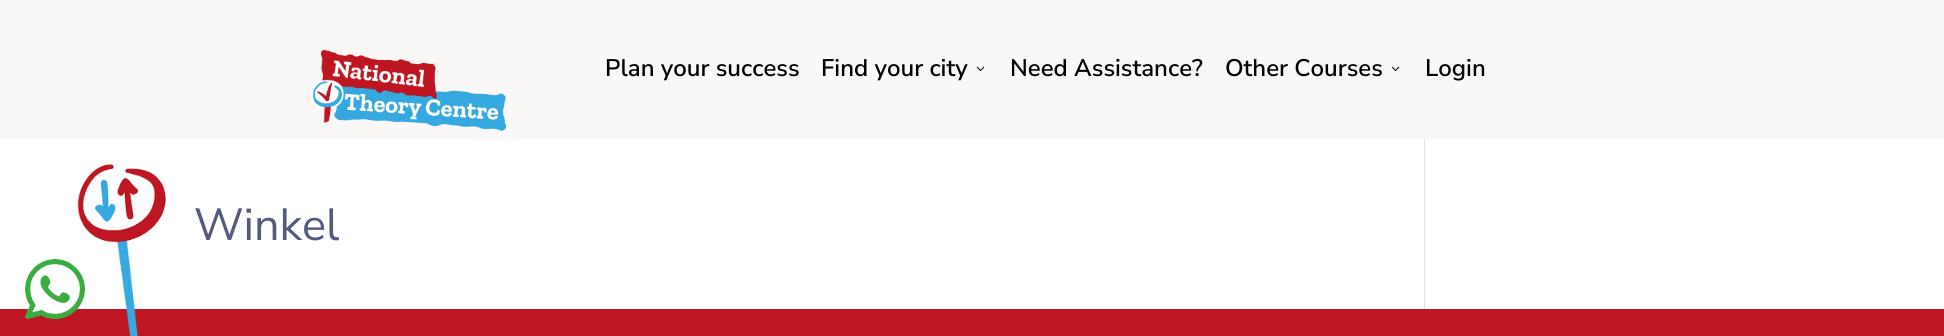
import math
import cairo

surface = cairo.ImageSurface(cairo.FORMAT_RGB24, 1944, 336)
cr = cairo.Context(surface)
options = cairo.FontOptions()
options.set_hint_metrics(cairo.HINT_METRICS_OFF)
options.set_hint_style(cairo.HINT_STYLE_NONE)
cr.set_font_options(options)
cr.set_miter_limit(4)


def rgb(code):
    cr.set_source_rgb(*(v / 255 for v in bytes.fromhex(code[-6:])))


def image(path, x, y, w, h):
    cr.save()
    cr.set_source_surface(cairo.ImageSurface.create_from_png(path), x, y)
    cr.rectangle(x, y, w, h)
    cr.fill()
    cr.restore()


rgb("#ffffff")
cr.paint()
rgb("#faf7f7")
cr.rectangle(0, 0, 1944, 139)
cr.fill()
image("img/1.png", 311, 50, 196, 81)
image("img/2.png", 976, 66, 9, 5)
image("img/2.png", 1391, 66, 9, 5)
rgb("#be1622")
cr.rectangle(0, 309, 1944, 27)
cr.fill()
image("img/3.png", 77, 164, 89, 172)
rgb("#e2e2e2")
cr.rectangle(1424, 139, 1, 170)
cr.fill()
image("img/4.png", 25, 259, 60, 60)
cr.select_font_face("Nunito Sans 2 ExtraLight")
cr.set_font_size(24)
rgb("#000000")
for x, y, s in [
    (605, 76, "Plan your success"),
    (821, 76, "Find your city"),
    (1010, 76, "Need Assistance?"),
    (1225, 76, "Other Courses"),
    (1425, 76, "Login"),
]:
    cr.move_to(x, y)
    cr.show_text(s)
cr.select_font_face("Nunito Sans ExtraLight")
cr.set_font_size(45)
rgb("#535b7c")
cr.move_to(194, 240)
cr.show_text("Winkel")
surface.write_to_png("page.png")
